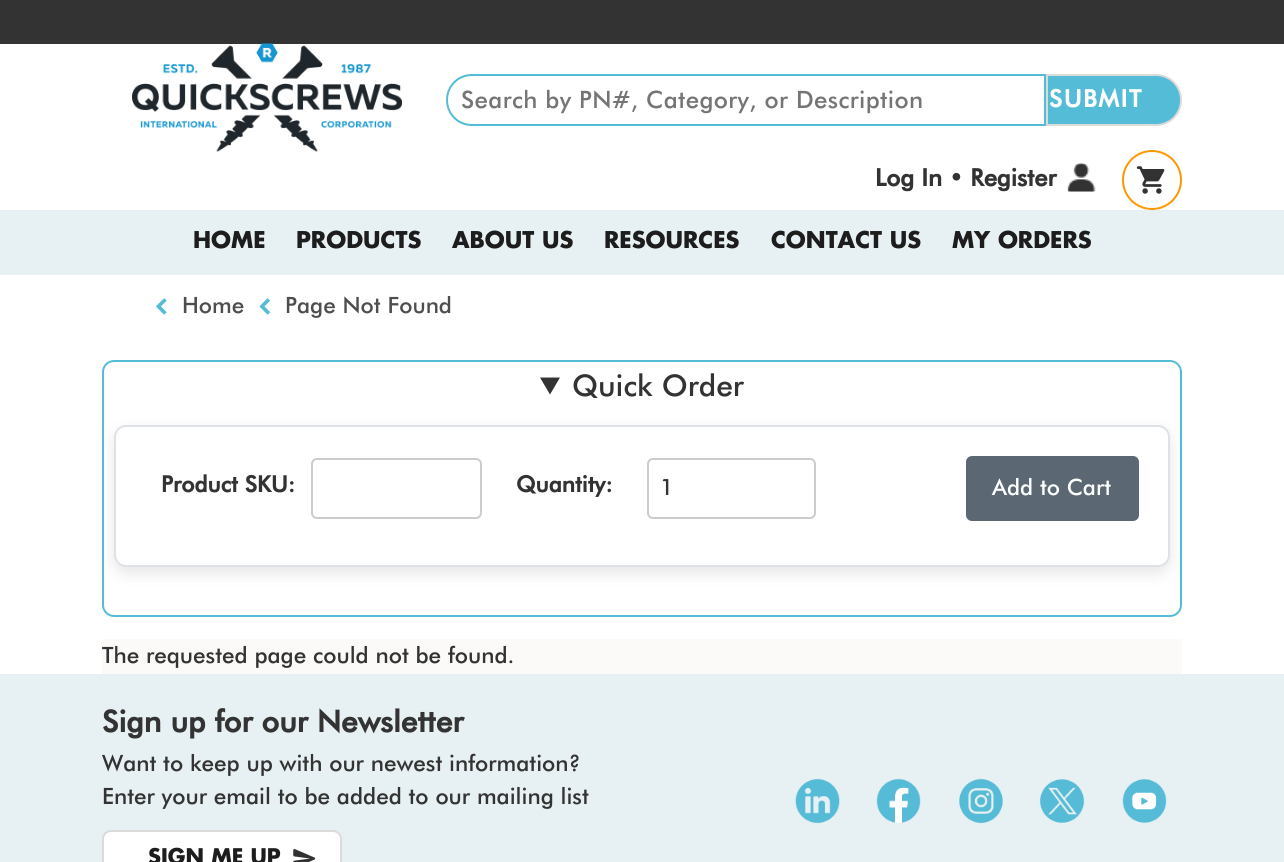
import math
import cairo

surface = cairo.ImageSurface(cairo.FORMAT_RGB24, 1284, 862)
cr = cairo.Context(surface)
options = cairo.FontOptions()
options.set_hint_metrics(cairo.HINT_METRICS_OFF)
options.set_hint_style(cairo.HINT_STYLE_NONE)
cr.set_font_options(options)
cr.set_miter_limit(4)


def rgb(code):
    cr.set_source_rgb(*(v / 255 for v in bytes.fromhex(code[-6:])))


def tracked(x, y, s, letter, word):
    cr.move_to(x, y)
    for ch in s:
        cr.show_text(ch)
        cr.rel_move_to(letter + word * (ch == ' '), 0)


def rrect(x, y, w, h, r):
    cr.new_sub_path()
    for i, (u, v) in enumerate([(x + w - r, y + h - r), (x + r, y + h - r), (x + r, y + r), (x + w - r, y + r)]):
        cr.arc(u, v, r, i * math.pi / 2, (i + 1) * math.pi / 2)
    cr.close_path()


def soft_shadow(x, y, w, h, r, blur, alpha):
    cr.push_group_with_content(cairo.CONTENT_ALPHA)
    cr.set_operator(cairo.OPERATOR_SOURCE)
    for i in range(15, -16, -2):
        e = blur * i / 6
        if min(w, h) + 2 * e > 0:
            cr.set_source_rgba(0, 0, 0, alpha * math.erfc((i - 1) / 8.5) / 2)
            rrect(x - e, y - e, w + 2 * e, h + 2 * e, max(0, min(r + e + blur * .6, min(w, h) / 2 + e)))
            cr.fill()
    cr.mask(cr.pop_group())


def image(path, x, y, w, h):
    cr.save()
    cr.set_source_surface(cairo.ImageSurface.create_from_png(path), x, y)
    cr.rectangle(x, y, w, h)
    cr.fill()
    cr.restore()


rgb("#ffffff")
cr.paint()
rgb("#333333")
cr.rectangle(0, 0, 1284, 44)
cr.fill()
image("img/1.png", 132, 43, 270, 109)
cr.new_path()
cr.move_to(472, 75)
cr.line_to(1045, 75)
cr.line_to(1045, 125)
cr.line_to(472, 125)
cr.curve_to(458, 125, 447, 114, 447, 100)
cr.curve_to(447, 86, 458, 75, 472, 75)
cr.close_path()
rgb("#55bcd7")
cr.stroke()
cr.new_path()
cr.move_to(1047, 75)
cr.line_to(1156, 75)
cr.curve_to(1170, 75, 1181, 86, 1181, 100)
cr.curve_to(1181, 114, 1170, 125, 1156, 125)
cr.line_to(1047, 125)
cr.close_path()
cr.fill_preserve()
rgb("#dbdbdb")
cr.stroke()
image("img/2.png", 1067, 163, 29, 29)
image("img/3.png", 1136, 166, 29, 28)
cr.arc(1152, 180, 29, 0, 2 * math.pi)
rgb("#ff9700")
cr.stroke()
rgb("#e7f0f2")
cr.rectangle(0, 210, 1284, 65)
cr.fill()
image("img/4.png", 156, 298, 11, 17)
image("img/5.png", 259, 298, 11, 17)
rrect(103, 361, 1078, 255, 11)
rgb("#54bcd7")
cr.stroke()
rgb("#333333")
cr.new_path()
cr.move_to(540, 377.5)
cr.line_to(560, 377.5)
cr.line_to(550, 394.5)
cr.close_path()
cr.fill()
rgb("#000000")
soft_shadow(114, 431, 1056, 142, 12, 7.5, 0.1)
rgb("#ffffff")
rrect(115, 426, 1054, 140, 11)
cr.fill_preserve()
rgb("#dee2e6")
cr.stroke()
rrect(312, 459, 169, 59, 5)
rgb("#cccccc")
cr.stroke()
rrect(648, 459, 167, 59, 5)
cr.stroke()
rgb("#5b6773")
rrect(966, 456, 173, 65, 6)
cr.fill()
rgb("#fbfaf8")
cr.rectangle(102, 639, 1080, 35)
cr.fill()
rgb("#e7f0f2")
cr.rectangle(0, 674, 1284, 188)
cr.fill()
rgb("#ffffff")
rrect(103, 831, 238, 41, 8)
cr.fill_preserve()
rgb("#dbdbdb")
cr.stroke()
image("img/6.png", 293, 849, 23, 13)
image("img/7.png", 795, 778, 45, 46)
image("img/8.png", 876, 778, 45, 45)
image("img/9.png", 959, 778, 44, 46)
image("img/10.png", 1039, 779, 46, 44)
image("img/11.png", 1122, 779, 45, 44)
cr.select_font_face("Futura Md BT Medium")
cr.set_font_size(24)
rgb("#757575")
tracked(461, 108, "Search by PN#, Category, or Description", 0.4, 0)
cr.select_font_face("Futura Md BT", cairo.FONT_SLANT_NORMAL, cairo.FONT_WEIGHT_BOLD)
rgb("#ffffff")
tracked(1049, 107, "SUBMIT", 1.5, 0)
rgb("#333333")
tracked(875, 186, "Log In • Register", -0.1, 0)
cr.select_font_face("Futura", cairo.FONT_SLANT_NORMAL, cairo.FONT_WEIGHT_BOLD)
cr.set_font_size(22.5)
rgb("#1d1d1d")
for x, y, s in [
    (193, 248, "HOME"),
    (296, 248, "PRODUCTS"),
    (452, 248, "ABOUT US"),
    (604, 248, "RESOURCES"),
    (771, 248, "CONTACT US"),
    (952, 248, "MY ORDERS"),
]:
    cr.move_to(x, y)
    cr.show_text(s)
cr.select_font_face("Futura Md BT Medium")
rgb("#4e4e4e")
cr.move_to(182, 313)
cr.show_text("Home")
cr.move_to(285, 313)
cr.show_text("Page Not Found")
cr.set_font_size(30)
rgb("#333333")
cr.move_to(572, 396)
cr.show_text("Quick Order")
cr.select_font_face("Futura Md BT", cairo.FONT_SLANT_NORMAL, cairo.FONT_WEIGHT_BOLD)
cr.set_font_size(22.5)
cr.move_to(161, 492)
cr.show_text("Product SKU:")
cr.move_to(516, 492)
cr.show_text("Quantity:")
cr.select_font_face("Futura Md BT Medium")
cr.move_to(660, 495)
cr.show_text("1")
rgb("#ffffff")
cr.move_to(992, 495)
cr.show_text("Add to Cart")
rgb("#333333")
cr.move_to(102, 663)
cr.show_text("The requested page could not be found.")
cr.select_font_face("Futura Md BT", cairo.FONT_SLANT_NORMAL, cairo.FONT_WEIGHT_BOLD)
cr.set_font_size(30)
cr.move_to(102, 732)
cr.show_text("Sign up for our Newsletter")
cr.select_font_face("Futura Md BT Medium")
cr.set_font_size(22.5)
cr.move_to(102, 771)
cr.show_text("Want to keep up with our newest information?")
cr.move_to(102, 804)
cr.show_text("Enter your email to be added to our mailing list")
cr.select_font_face("Futura", cairo.FONT_SLANT_NORMAL, cairo.FONT_WEIGHT_BOLD)
cr.set_font_size(21)
rgb("#1d1d1d")
cr.move_to(148, 864)
cr.show_text("SIGN ME UP")
surface.write_to_png("page.png")
